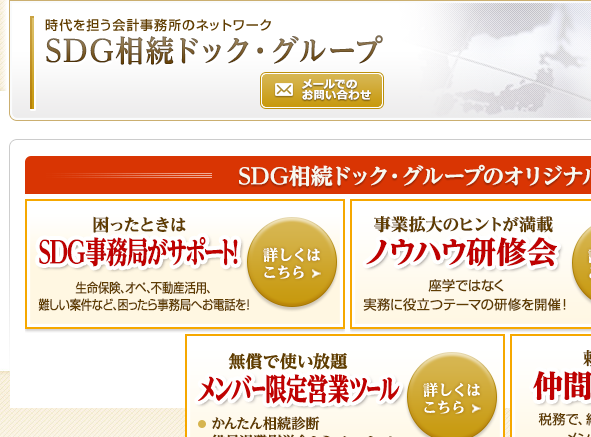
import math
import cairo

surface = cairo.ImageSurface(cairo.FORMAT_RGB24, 591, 437)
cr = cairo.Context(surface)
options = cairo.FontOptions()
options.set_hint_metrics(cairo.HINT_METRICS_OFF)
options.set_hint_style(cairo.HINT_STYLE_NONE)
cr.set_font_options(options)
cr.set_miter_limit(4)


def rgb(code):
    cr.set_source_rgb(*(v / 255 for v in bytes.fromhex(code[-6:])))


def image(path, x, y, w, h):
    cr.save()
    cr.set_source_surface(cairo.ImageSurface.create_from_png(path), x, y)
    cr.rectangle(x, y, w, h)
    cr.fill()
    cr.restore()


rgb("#ffffff")
cr.paint()
image("img/1.png", 0, 0, 591, 437)
image("img/2.png", 1, 0, 590, 121)
image("img/3.png", 45, 18, 338, 47)
image("img/4.png", 260, 72, 124, 37)
image("img/5.png", 9, 139, 582, 269)
image("img/6.png", 25, 156, 566, 38)
image("img/7.png", 25, 199, 320, 134)
image("img/8.png", 350, 199, 241, 134)
image("img/9.png", 185, 334, 320, 103)
image("img/10.png", 510, 334, 81, 103)
surface.write_to_png("page.png")
